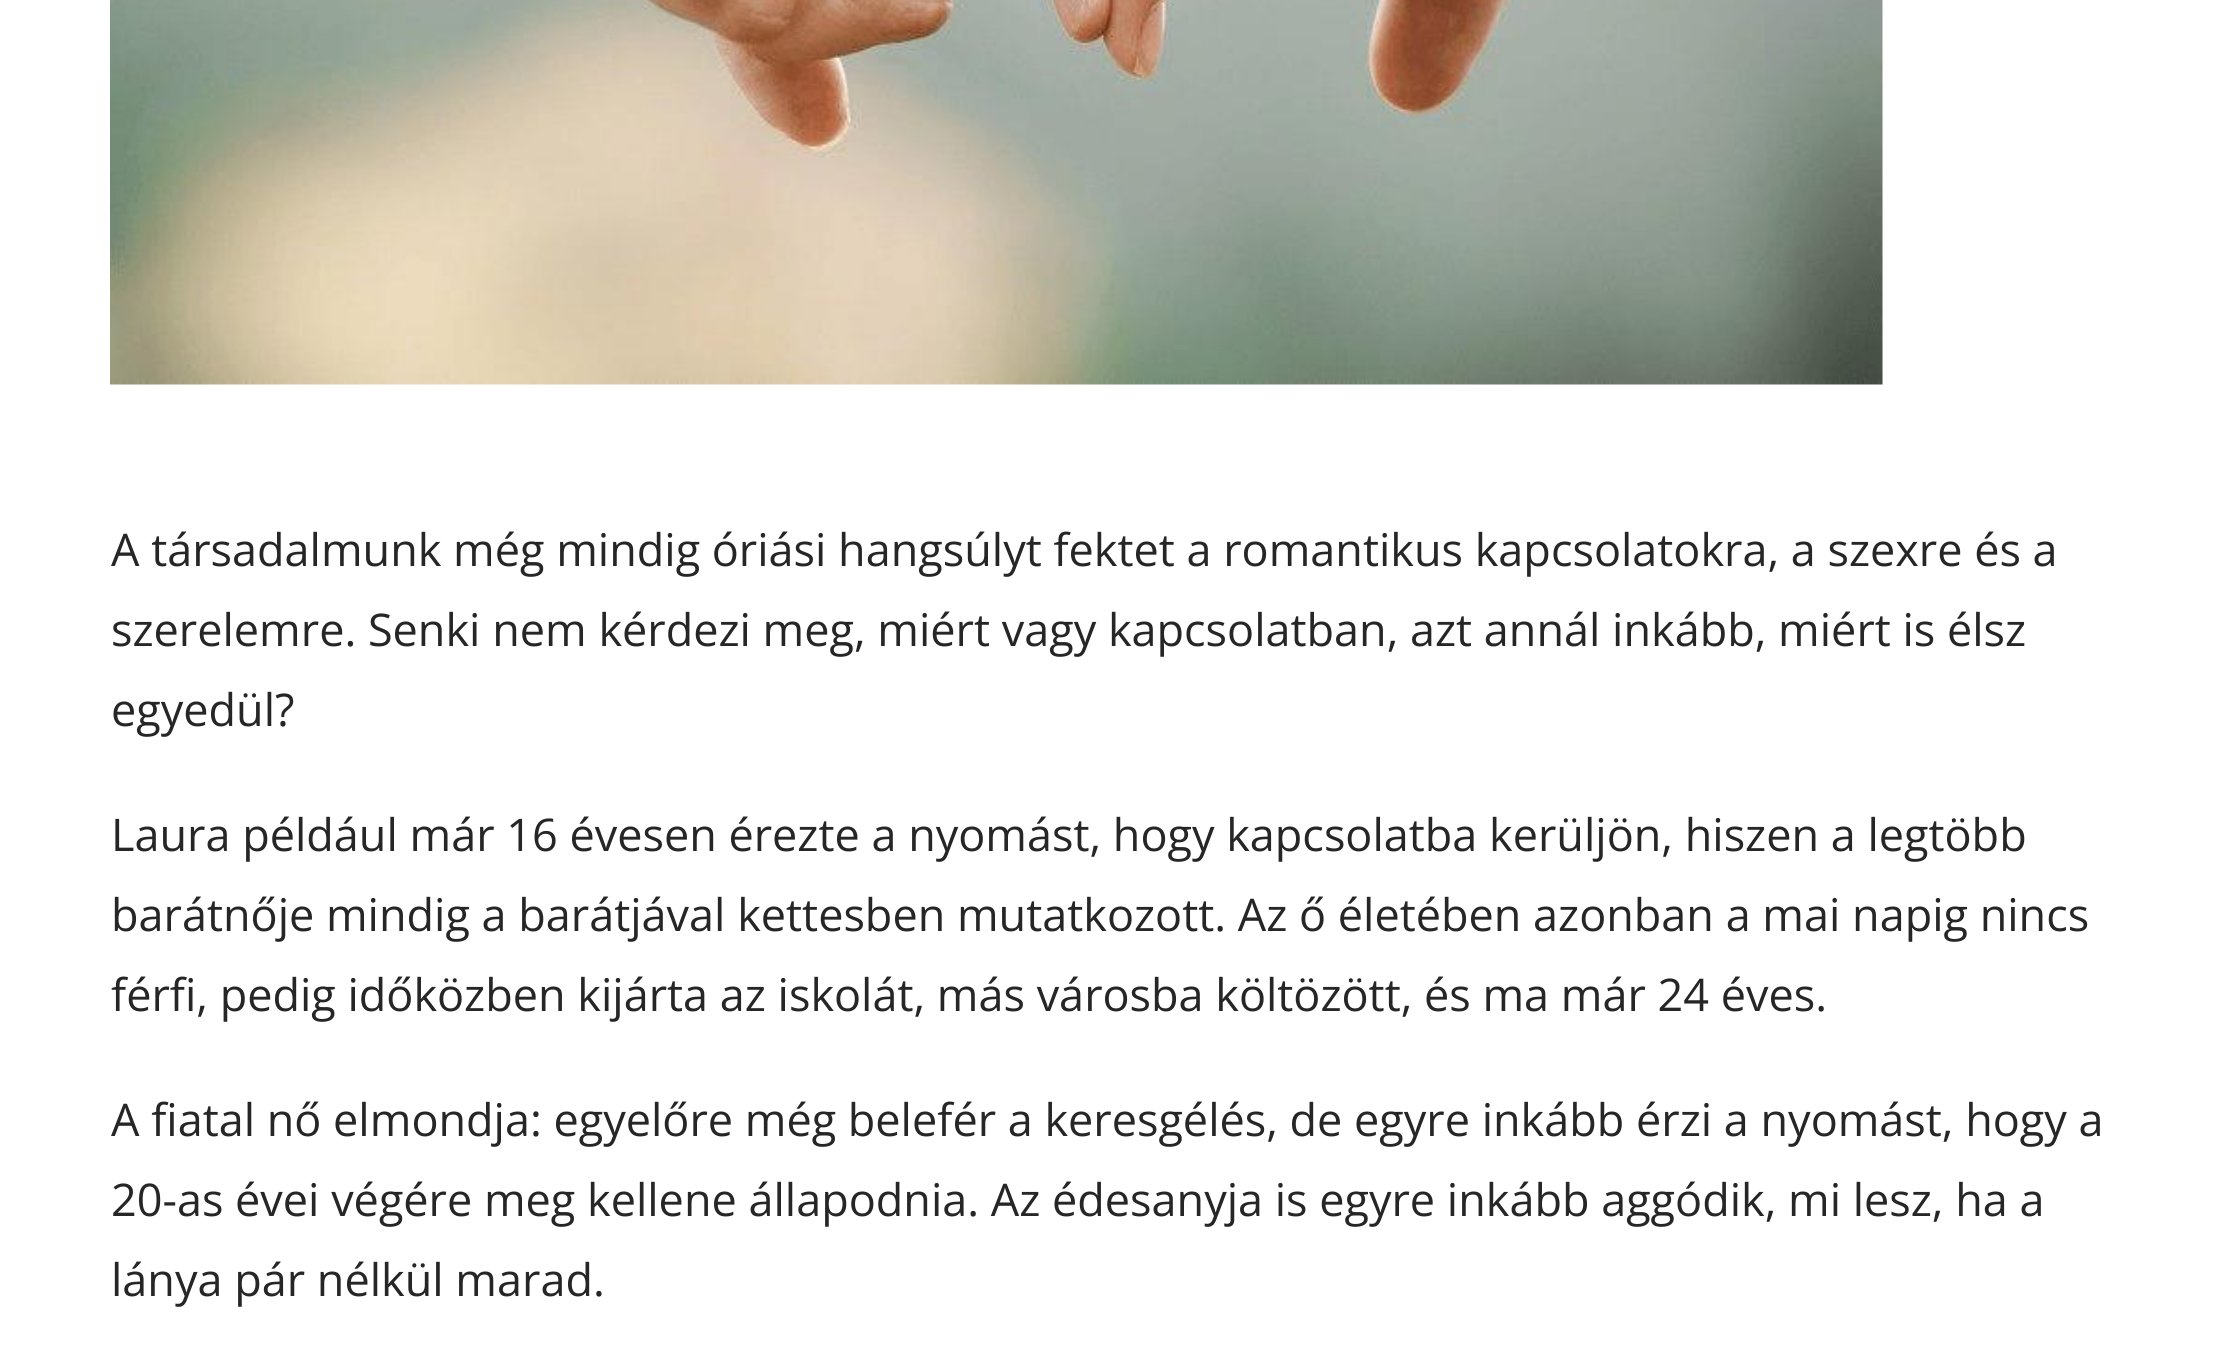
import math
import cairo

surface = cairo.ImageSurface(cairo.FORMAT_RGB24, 2213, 1363)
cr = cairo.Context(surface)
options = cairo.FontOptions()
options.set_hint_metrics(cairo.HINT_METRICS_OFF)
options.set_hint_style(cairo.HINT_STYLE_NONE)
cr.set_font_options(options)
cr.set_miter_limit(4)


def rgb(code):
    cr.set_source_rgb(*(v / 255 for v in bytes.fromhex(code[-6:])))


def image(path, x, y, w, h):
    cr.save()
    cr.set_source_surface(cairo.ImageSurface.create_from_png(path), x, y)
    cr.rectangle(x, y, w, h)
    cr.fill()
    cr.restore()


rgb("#ffffff")
cr.paint()
image("img/1.png", 110, 0, 1773, 385)
cr.select_font_face("Open Sans")
cr.set_font_size(45)
rgb("#262626")
for x, y, s in [
    (111, 566, "A társadalmunk még mindig óriási hangsúlyt fektet a romantikus kapcsolatokra, a szexre és a"),
    (111, 646, "szerelemre. Senki nem kérdezi meg, miért vagy kapcsolatban, azt annál inkább, miért is élsz"),
    (111, 726, "egyedül?"),
    (111, 851, "Laura például már 16 évesen érezte a nyomást, hogy kapcsolatba kerüljön, hiszen a legtöbb"),
    (111, 931, "barátnője mindig a barátjával kettesben mutatkozott. Az ő életében azonban a mai napig nincs"),
    (111, 1011, "férfi, pedig időközben kijárta az iskolát, más városba költözött, és ma már 24 éves."),
    (111, 1136, "A fiatal nő elmondja: egyelőre még belefér a keresgélés, de egyre inkább érzi a nyomást, hogy a"),
    (111, 1216, "20-as évei végére meg kellene állapodnia. Az édesanyja is egyre inkább aggódik, mi lesz, ha a"),
    (111, 1296, "lánya pár nélkül marad."),
]:
    cr.move_to(x, y)
    cr.show_text(s)
surface.write_to_png("page.png")
